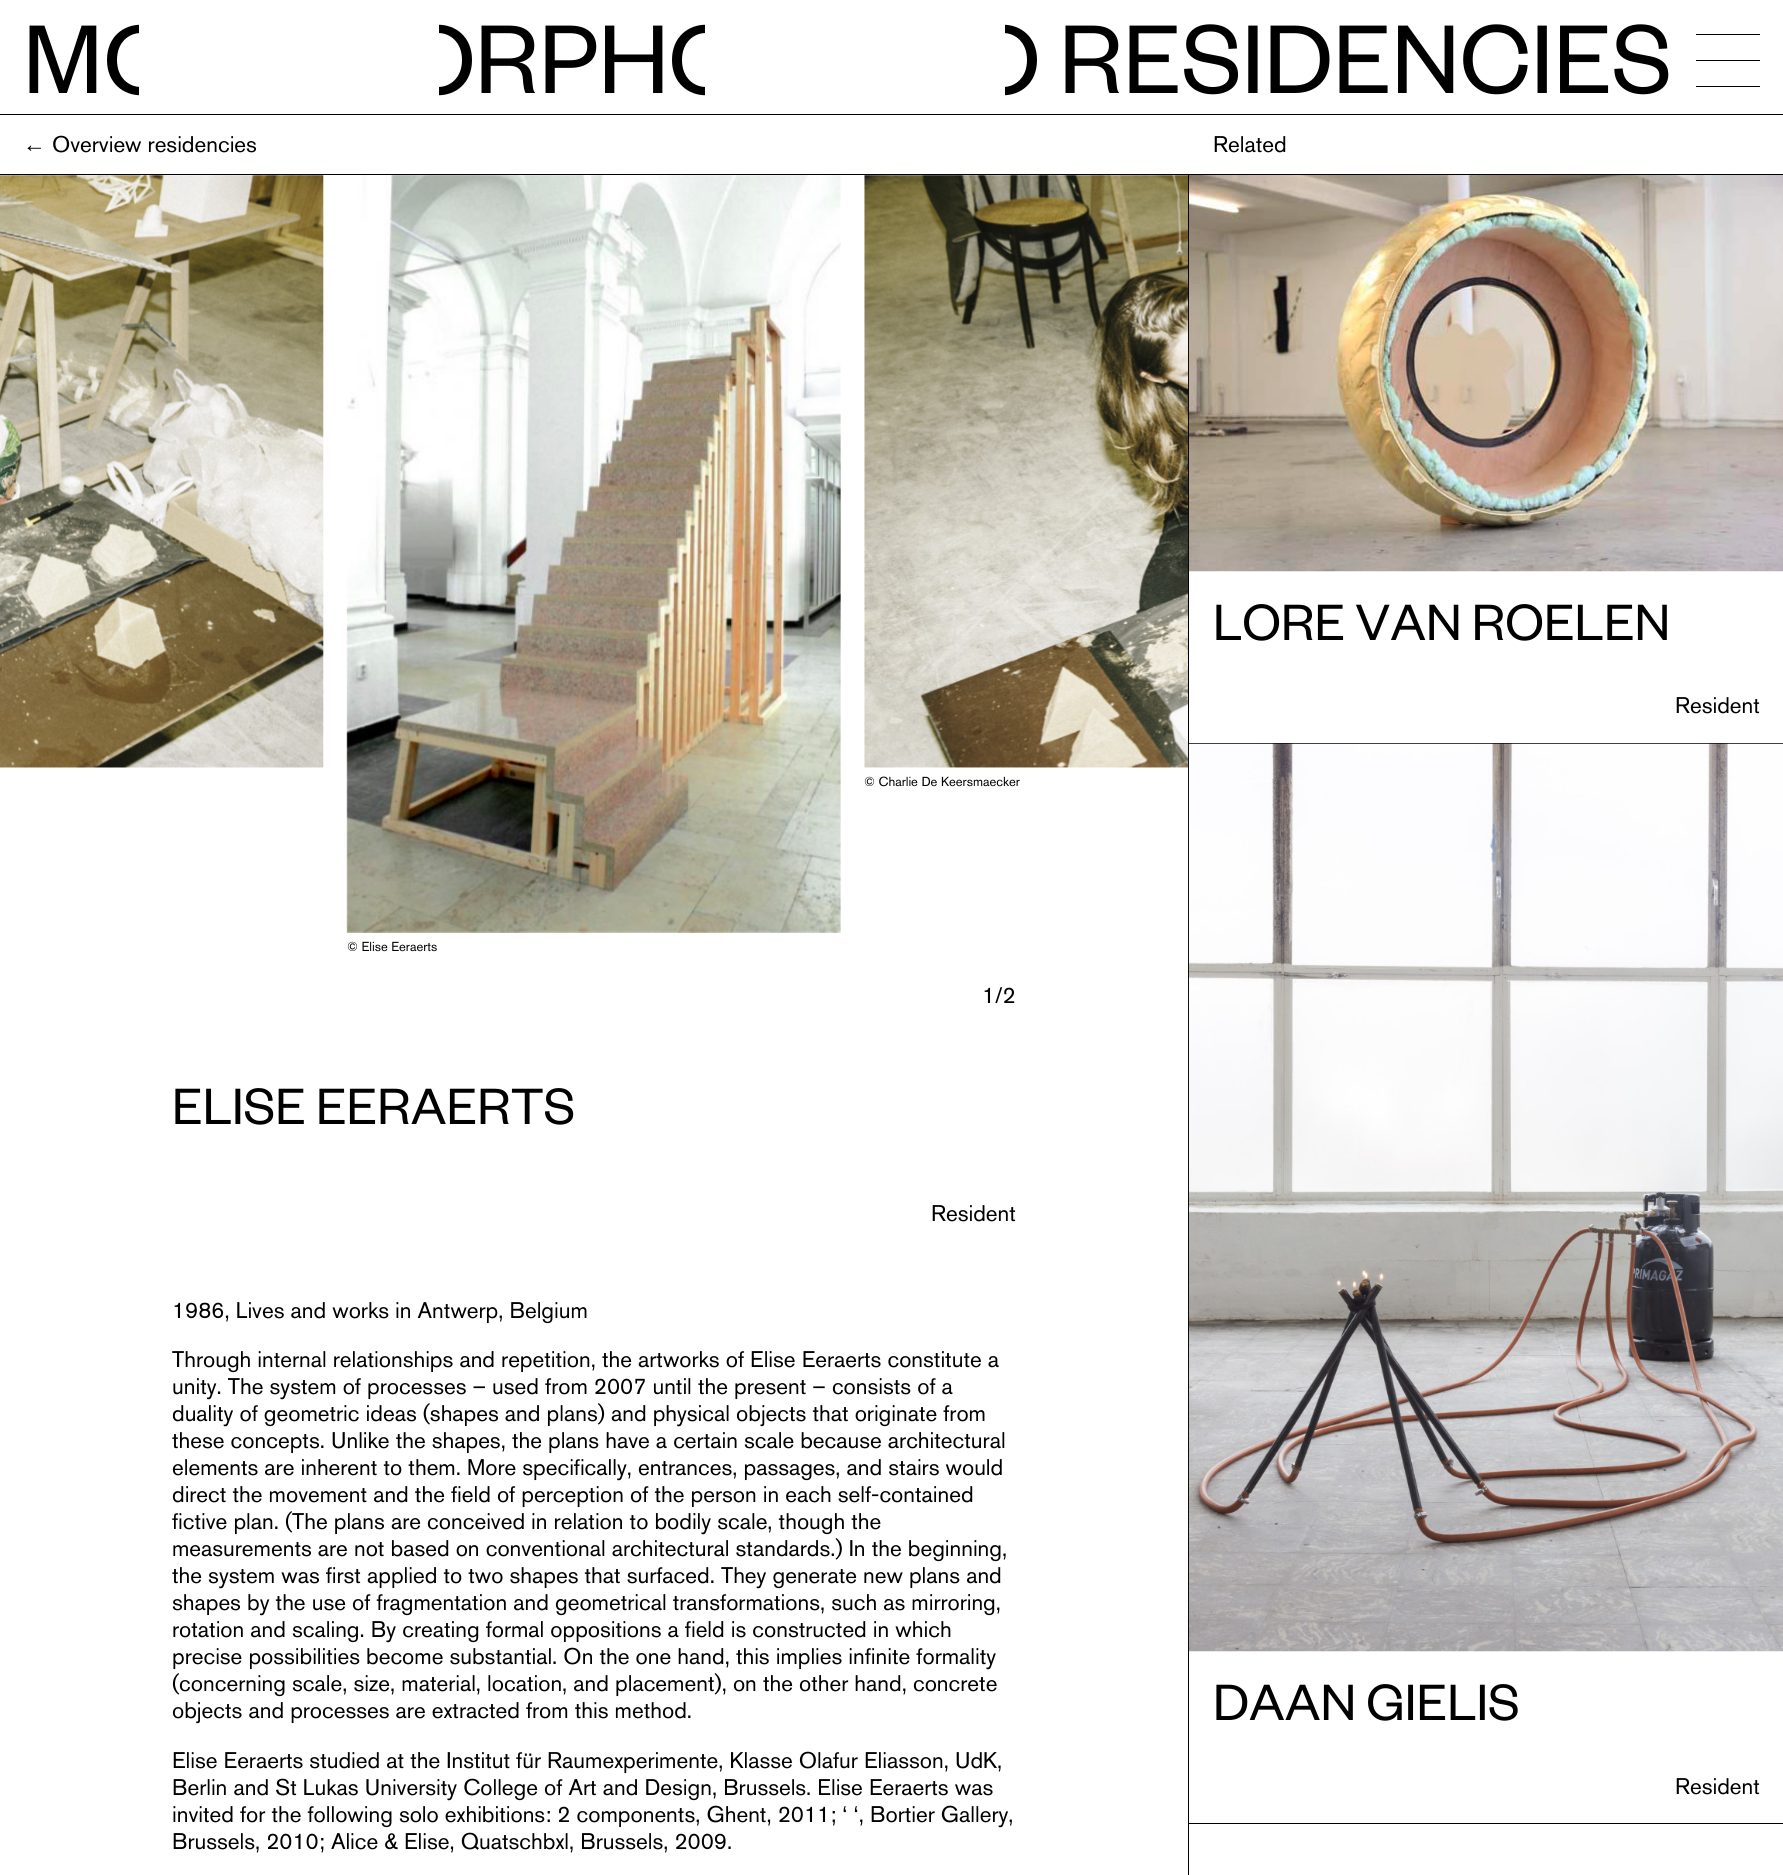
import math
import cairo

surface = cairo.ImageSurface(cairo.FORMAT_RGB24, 1783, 1875)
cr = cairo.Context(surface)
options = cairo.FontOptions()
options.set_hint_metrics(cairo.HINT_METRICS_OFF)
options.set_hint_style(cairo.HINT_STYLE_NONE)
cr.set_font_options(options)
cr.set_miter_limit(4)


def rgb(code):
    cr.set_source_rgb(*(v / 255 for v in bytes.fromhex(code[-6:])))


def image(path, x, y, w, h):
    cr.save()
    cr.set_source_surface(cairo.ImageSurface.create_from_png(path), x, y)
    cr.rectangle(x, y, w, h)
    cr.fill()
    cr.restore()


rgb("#ffffff")
cr.paint()
rgb("#000000")
cr.rectangle(0, 114, 1783, 1)
cr.fill()
cr.new_path()
cr.move_to(174, 60)
cr.curve_to(174, 107, 107, 107, 107, 60)
cr.curve_to(107, 13, 174, 13, 174, 60)
cr.close_path()
cr.move_to(165, 60)
cr.curve_to(165, 24, 117, 24, 117, 60)
cr.curve_to(117, 96, 165, 96, 165, 60)
cr.close_path()
cr.fill()
cr.new_path()
cr.move_to(472, 60)
cr.curve_to(472, 107, 405, 107, 405, 60)
cr.curve_to(405, 13, 472, 13, 472, 60)
cr.close_path()
cr.move_to(462, 60)
cr.curve_to(462, 24, 414, 24, 414, 60)
cr.curve_to(414, 96, 462, 96, 462, 60)
cr.close_path()
cr.fill()
rgb("#ffffff")
cr.rectangle(139, 24, 300, 72)
cr.fill()
rgb("#000000")
cr.new_path()
cr.move_to(739, 60)
cr.curve_to(739, 107, 672, 107, 672, 60)
cr.curve_to(672, 13, 739, 13, 739, 60)
cr.close_path()
cr.move_to(730, 60)
cr.curve_to(730, 24, 682, 24, 682, 60)
cr.curve_to(682, 96, 730, 96, 730, 60)
cr.close_path()
cr.fill()
cr.new_path()
cr.move_to(1037, 60)
cr.curve_to(1037, 107, 970, 107, 970, 60)
cr.curve_to(970, 13, 1037, 13, 1037, 60)
cr.close_path()
cr.move_to(1027, 60)
cr.curve_to(1027, 24, 979, 24, 979, 60)
cr.curve_to(979, 96, 1027, 96, 1027, 60)
cr.close_path()
cr.fill()
for x, y, w, h, color in [
    (705, 24, 300, 72, "#ffffff"),
    (1696, 34, 64, 1, "#000000"),
    (1696, 60, 64, 1, "#000000"),
    (1696, 86, 64, 1, "#000000"),
    (0, 174, 1783, 1, "#000000"),
    (1188, 175, 1, 1700, "#000000"),
]:
    rgb(color)
    cr.rectangle(x, y, w, h)
    cr.fill()
image("img/1.png", 0, 175, 324, 593)
image("img/2.png", 864, 175, 324, 593)
image("img/3.png", 346, 175, 495, 758)
cr.rectangle(1189, 743, 594, 1)
cr.fill()
image("img/4.png", 1188, 175, 595, 397)
cr.rectangle(1189, 1823, 594, 1)
cr.fill()
image("img/5.png", 1188, 743, 595, 909)
cr.select_font_face("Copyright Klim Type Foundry")
cr.set_font_size(107)
for x, y, s in [
    (23, 93, "M"),
    (475, 93, "RPH"),
    (1059, 93, "RESIDENCIES"),
]:
    cr.move_to(x, y)
    cr.show_text(s)
cr.select_font_face("Liberation Sans")
cr.set_font_size(22.5)
cr.move_to(23, 152)
cr.show_text("←")
cr.select_font_face("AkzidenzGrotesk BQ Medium")
cr.move_to(52, 152)
cr.show_text("Overview residencies")
cr.move_to(1213, 152)
cr.show_text("Related")
cr.set_font_size(13)
cr.move_to(864, 786)
cr.show_text("© Charlie De Keersmaecker")
cr.move_to(347, 951)
cr.show_text("© Elise Eeraerts")
cr.set_font_size(22.5)
cr.move_to(982, 1003)
cr.show_text("1/2")
cr.select_font_face("Copyright Klim Type Foundry")
cr.set_font_size(56)
cr.move_to(172, 1124)
cr.show_text("ELISE EERAERTS")
cr.select_font_face("AkzidenzGrotesk BQ Medium")
cr.set_font_size(22.5)
for x, y, s in [
    (931, 1221, "Resident"),
    (172, 1318, "1986, Lives and works in Antwerp, Belgium"),
    (172, 1367, "Through internal relationships and repetition, the artworks of Elise Eeraerts constitute a"),
    (172, 1394, "unity. The system of processes – used from 2007 until the present – consists of a"),
    (172, 1421, "duality of geometric ideas (shapes and plans) and physical objects that originate from"),
    (172, 1448, "these concepts. Unlike the shapes, the plans have a certain scale because architectural"),
    (172, 1475, "elements are inherent to them. More specifically, entrances, passages, and stairs would"),
    (172, 1502, "direct the movement and the field of perception of the person in each self-contained"),
    (172, 1529, "fictive plan. (The plans are conceived in relation to bodily scale, though the"),
    (172, 1556, "measurements are not based on conventional architectural standards.) In the beginning,"),
    (172, 1583, "the system was first applied to two shapes that surfaced. They generate new plans and"),
    (172, 1610, "shapes by the use of fragmentation and geometrical transformations, such as mirroring,"),
    (172, 1637, "rotation and scaling. By creating formal oppositions a field is constructed in which"),
    (172, 1664, "precise possibilities become substantial. On the one hand, this implies infinite formality"),
    (172, 1691, "(concerning scale, size, material, location, and placement), on the other hand, concrete"),
    (172, 1718, "objects and processes are extracted from this method."),
    (172, 1768, "Elise Eeraerts studied at the Institut für Raumexperimente, Klasse Olafur Eliasson, UdK,"),
    (172, 1795, "Berlin and St Lukas University College of Art and Design, Brussels. Elise Eeraerts was"),
    (172, 1822, "invited for the following solo exhibitions: 2 components, Ghent, 2011; ‘ ‘, Bortier Gallery,"),
    (172, 1849, "Brussels, 2010; Alice & Elise, Quatschbxl, Brussels, 2009."),
]:
    cr.move_to(x, y)
    cr.show_text(s)
cr.select_font_face("Copyright Klim Type Foundry")
cr.set_font_size(56)
cr.move_to(1213, 640)
cr.show_text("LORE VAN ROELEN")
cr.select_font_face("AkzidenzGrotesk BQ Medium")
cr.set_font_size(22.5)
cr.move_to(1675, 713)
cr.show_text("Resident")
cr.select_font_face("Copyright Klim Type Foundry")
cr.set_font_size(56)
cr.move_to(1213, 1720)
cr.show_text("DAAN GIELIS")
cr.select_font_face("AkzidenzGrotesk BQ Medium")
cr.set_font_size(22.5)
cr.move_to(1675, 1794)
cr.show_text("Resident")
surface.write_to_png("page.png")
